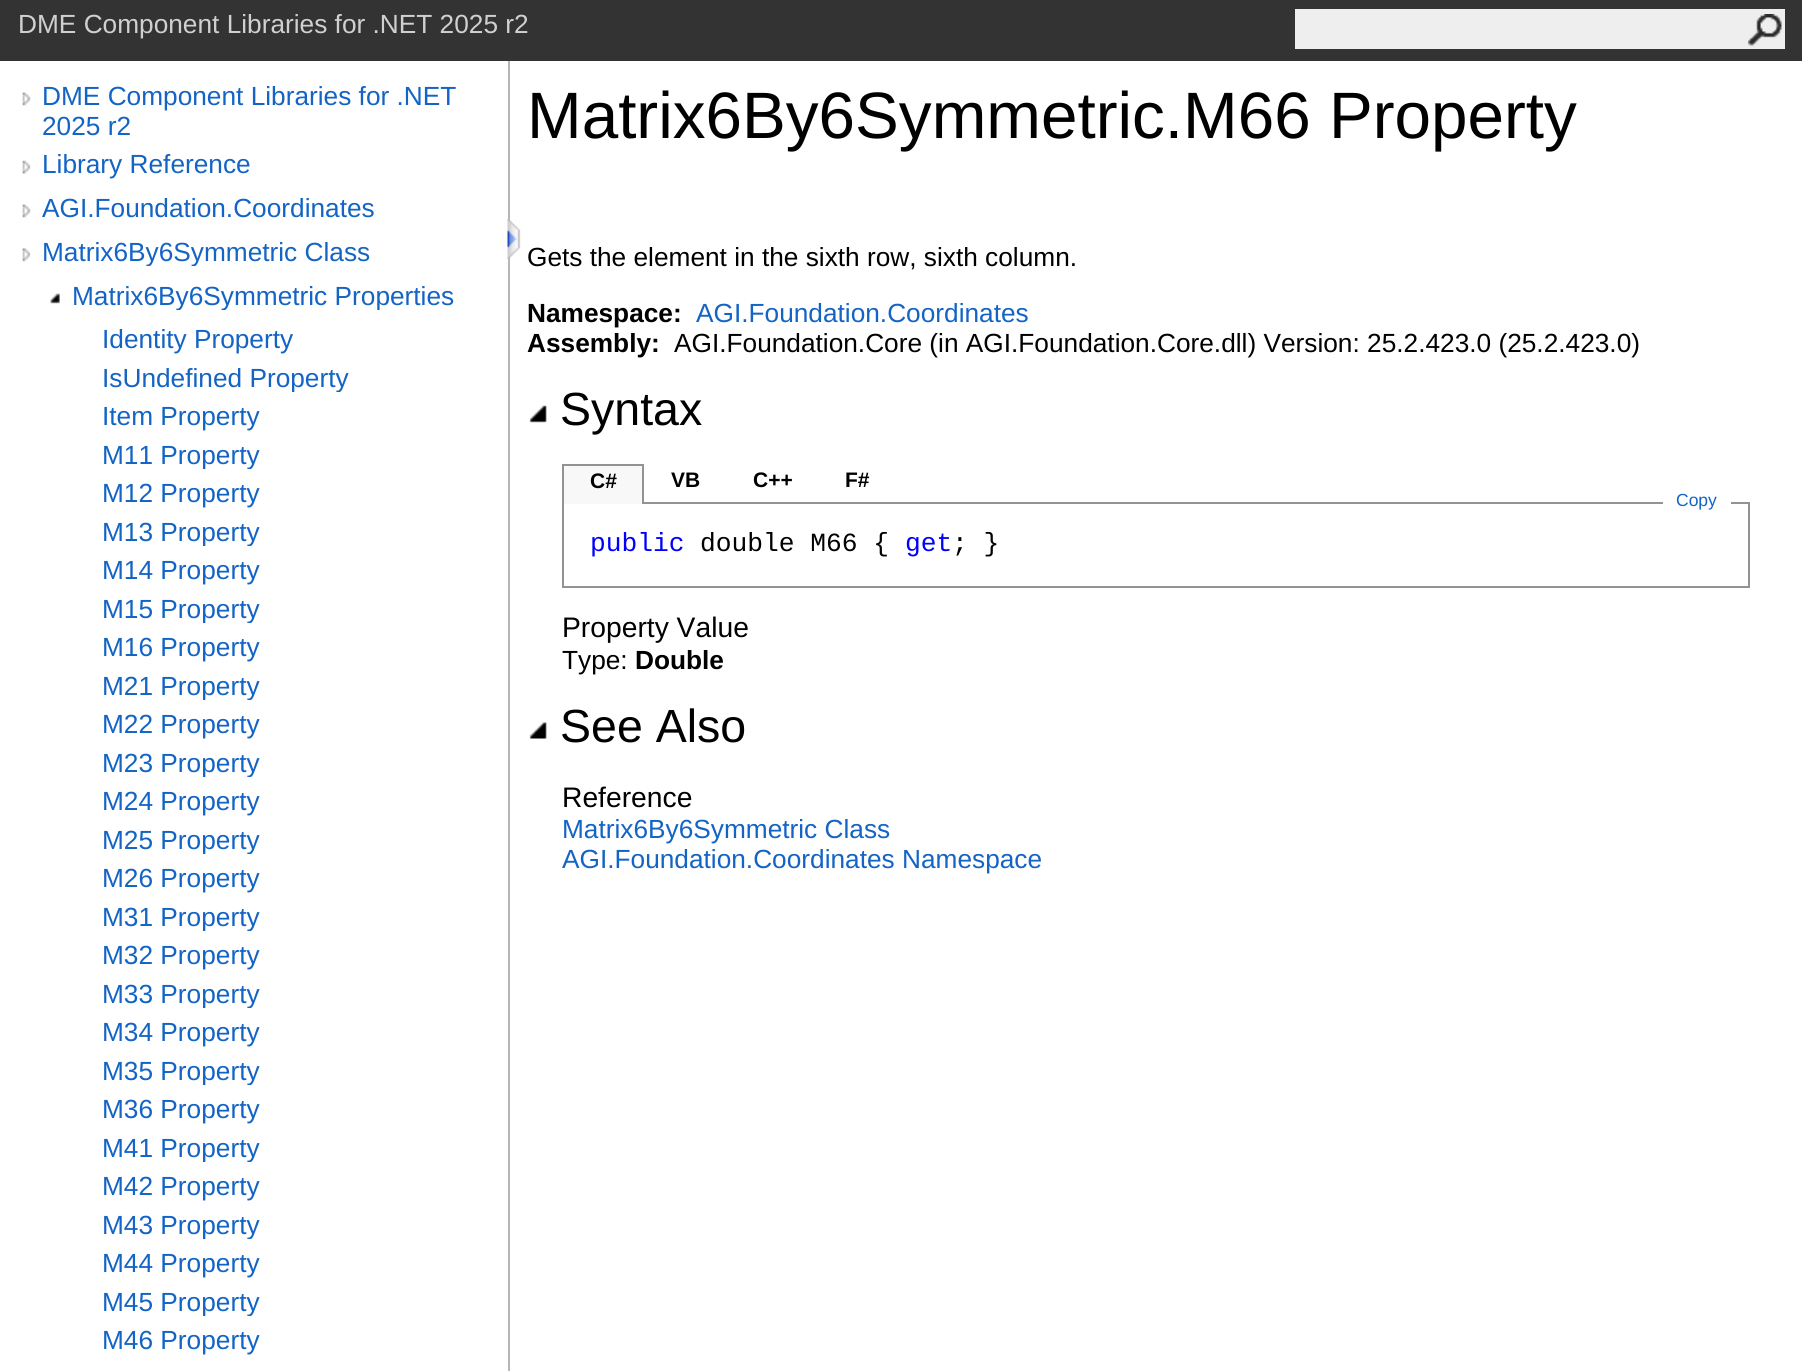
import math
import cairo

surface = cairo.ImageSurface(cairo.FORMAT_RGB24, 1802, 1371)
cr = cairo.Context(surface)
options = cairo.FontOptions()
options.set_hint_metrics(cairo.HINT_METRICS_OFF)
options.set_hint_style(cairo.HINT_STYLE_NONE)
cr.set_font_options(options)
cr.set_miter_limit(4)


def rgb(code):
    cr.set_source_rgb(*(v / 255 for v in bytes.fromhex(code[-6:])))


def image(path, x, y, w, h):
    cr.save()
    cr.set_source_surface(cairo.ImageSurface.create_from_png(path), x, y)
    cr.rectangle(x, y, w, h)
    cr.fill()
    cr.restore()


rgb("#ffffff")
cr.paint()
rgb("#333333")
cr.rectangle(0, 0, 1802, 61)
cr.fill()
rgb("#eeeeee")
cr.rectangle(1295, 9, 490, 40)
cr.fill()
image("img/1.png", 1748, 14, 34, 32)
rgb("#b6b6b6")
cr.rectangle(508, 61, 2, 1310)
cr.fill()
image("img/2.png", 22, 92, 9, 14)
image("img/3.png", 22, 160, 9, 14)
image("img/2.png", 22, 204, 9, 14)
image("img/4.png", 22, 248, 9, 14)
image("img/5.png", 50, 293, 10, 11)
image("img/6.png", 507, 218, 14, 41)
image("img/7.png", 529, 405, 18, 18)
cr.rectangle(563, 503, 1186, 84)
rgb("#939393")
cr.stroke()
for x, y, w, h, color in [
    (564, 466, 78, 38, "#f8f8f8"),
    (562, 464, 82, 2, "#939393"),
    (642, 464, 2, 40, "#939393"),
    (562, 464, 2, 40, "#939393"),
    (1663, 502, 68, 2, "#ffffff"),
]:
    rgb(color)
    cr.rectangle(x, y, w, h)
    cr.fill()
image("img/8.png", 529, 722, 18, 17)
cr.select_font_face("Liberation Sans")
cr.set_font_size(26.25)
rgb("#d0d0d0")
cr.move_to(18, 33)
cr.show_text("DME Component Libraries for .NET 2025 r2")
rgb("#1364c4")
for x, y, s in [
    (42, 105, "DME Component Libraries for .NET"),
    (42, 135, "2025 r2"),
    (42, 173, "Library Reference"),
    (42, 217, "AGI.Foundation.Coordinates"),
]:
    cr.move_to(x, y)
    cr.show_text(s)
cr.save()
cr.rectangle(42, 236, 466, 30)
cr.clip()
cr.move_to(42, 261)
cr.show_text("Matrix6By6Symmetric Class")
cr.restore()
cr.save()
cr.rectangle(72, 280, 436, 30)
cr.clip()
cr.move_to(72, 305)
cr.show_text("Matrix6By6Symmetric Properties")
cr.restore()
cr.move_to(102, 348)
cr.show_text("Identity Property")
cr.save()
cr.rectangle(102, 362, 406, 30)
cr.clip()
cr.move_to(102, 387)
cr.show_text("IsUndefined Property")
cr.restore()
cr.move_to(102, 425)
cr.show_text("Item Property")
cr.save()
cr.rectangle(102, 439, 406, 30)
cr.clip()
cr.move_to(102, 464)
cr.show_text("M11 Property")
cr.restore()
cr.move_to(102, 502)
cr.show_text("M12 Property")
cr.save()
cr.rectangle(102, 516, 406, 30)
cr.clip()
cr.move_to(102, 541)
cr.show_text("M13 Property")
cr.restore()
cr.move_to(102, 579)
cr.show_text("M14 Property")
cr.save()
cr.rectangle(102, 593, 406, 30)
cr.clip()
cr.move_to(102, 618)
cr.show_text("M15 Property")
cr.restore()
cr.move_to(102, 656)
cr.show_text("M16 Property")
cr.save()
cr.rectangle(102, 670, 406, 30)
cr.clip()
cr.move_to(102, 695)
cr.show_text("M21 Property")
cr.restore()
cr.move_to(102, 733)
cr.show_text("M22 Property")
cr.save()
cr.rectangle(102, 747, 406, 30)
cr.clip()
cr.move_to(102, 772)
cr.show_text("M23 Property")
cr.restore()
cr.move_to(102, 810)
cr.show_text("M24 Property")
cr.save()
cr.rectangle(102, 824, 406, 30)
cr.clip()
cr.move_to(102, 849)
cr.show_text("M25 Property")
cr.restore()
cr.move_to(102, 887)
cr.show_text("M26 Property")
cr.save()
cr.rectangle(102, 901, 406, 30)
cr.clip()
cr.move_to(102, 926)
cr.show_text("M31 Property")
cr.restore()
cr.move_to(102, 964)
cr.show_text("M32 Property")
cr.save()
cr.rectangle(102, 978, 406, 30)
cr.clip()
cr.move_to(102, 1003)
cr.show_text("M33 Property")
cr.restore()
cr.move_to(102, 1041)
cr.show_text("M34 Property")
cr.save()
cr.rectangle(102, 1055, 406, 30)
cr.clip()
cr.move_to(102, 1080)
cr.show_text("M35 Property")
cr.restore()
cr.move_to(102, 1118)
cr.show_text("M36 Property")
cr.save()
cr.rectangle(102, 1132, 406, 30)
cr.clip()
cr.move_to(102, 1157)
cr.show_text("M41 Property")
cr.restore()
cr.move_to(102, 1195)
cr.show_text("M42 Property")
cr.save()
cr.rectangle(102, 1209, 406, 30)
cr.clip()
cr.move_to(102, 1234)
cr.show_text("M43 Property")
cr.restore()
cr.move_to(102, 1272)
cr.show_text("M44 Property")
cr.save()
cr.rectangle(102, 1286, 406, 30)
cr.clip()
cr.move_to(102, 1311)
cr.show_text("M45 Property")
cr.restore()
cr.move_to(102, 1349)
cr.show_text("M46 Property")
cr.set_font_size(65.6)
rgb("#000000")
cr.move_to(527, 138)
cr.show_text("Matrix6By6Symmetric.M66 Property")
cr.set_font_size(26.25)
cr.move_to(527, 266)
cr.show_text("Gets the element in the sixth row, sixth column.")
cr.select_font_face("Liberation Sans", cairo.FONT_SLANT_NORMAL, cairo.FONT_WEIGHT_BOLD)
cr.move_to(527, 322)
cr.show_text("Namespace:")
cr.select_font_face("Liberation Sans")
rgb("#1364c4")
cr.move_to(696, 322)
cr.show_text("AGI.Foundation.Coordinates")
cr.select_font_face("Liberation Sans", cairo.FONT_SLANT_NORMAL, cairo.FONT_WEIGHT_BOLD)
rgb("#000000")
cr.move_to(527, 352)
cr.show_text("Assembly:")
cr.select_font_face("Liberation Sans")
cr.move_to(674, 352)
cr.show_text("AGI.Foundation.Core (in AGI.Foundation.Core.dll) Version: 25.2.423.0 (25.2.423.0)")
cr.set_font_size(46.5)
cr.move_to(560, 425)
cr.show_text("Syntax")
cr.select_font_face("Liberation Sans", cairo.FONT_SLANT_NORMAL, cairo.FONT_WEIGHT_BOLD)
cr.set_font_size(21)
for x, y, s in [
    (590, 488, "C#"),
    (671, 487, "VB"),
    (753, 487, "C++"),
    (845, 487, "F#"),
]:
    cr.move_to(x, y)
    cr.show_text(s)
cr.select_font_face("Liberation Sans")
cr.set_font_size(17.5)
rgb("#1364c4")
cr.move_to(1676, 506)
cr.show_text("Copy")
cr.select_font_face("Liberation Mono")
cr.set_font_size(26.25)
rgb("#0000ff")
cr.move_to(590, 551)
cr.show_text("public")
rgb("#000000")
cr.move_to(700, 551)
cr.show_text("double M66 {")
rgb("#0000ff")
cr.move_to(905, 551)
cr.show_text("get")
rgb("#000000")
cr.move_to(952, 551)
cr.show_text("; }")
cr.select_font_face("Liberation Sans")
cr.set_font_size(28.25)
cr.move_to(562, 637)
cr.show_text("Property Value")
cr.set_font_size(26.25)
cr.move_to(562, 669)
cr.show_text("Type:")
cr.select_font_face("Liberation Sans", cairo.FONT_SLANT_NORMAL, cairo.FONT_WEIGHT_BOLD)
cr.move_to(635, 669)
cr.show_text("Double")
cr.select_font_face("Liberation Sans")
cr.set_font_size(46.5)
cr.move_to(560, 742)
cr.show_text("See Also")
cr.set_font_size(28.25)
cr.move_to(562, 807)
cr.show_text("Reference")
cr.set_font_size(26.25)
rgb("#1364c4")
cr.move_to(562, 838)
cr.show_text("Matrix6By6Symmetric Class")
cr.move_to(562, 868)
cr.show_text("AGI.Foundation.Coordinates Namespace")
surface.write_to_png("page.png")
